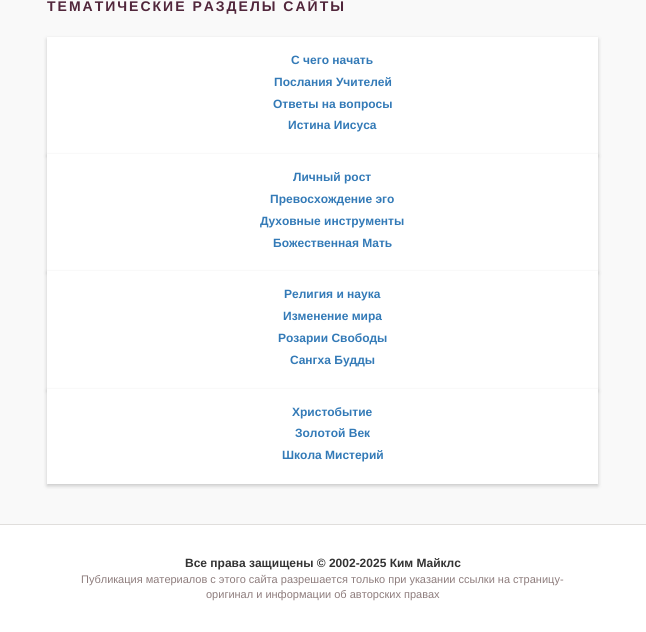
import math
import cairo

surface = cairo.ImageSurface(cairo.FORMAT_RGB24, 646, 632)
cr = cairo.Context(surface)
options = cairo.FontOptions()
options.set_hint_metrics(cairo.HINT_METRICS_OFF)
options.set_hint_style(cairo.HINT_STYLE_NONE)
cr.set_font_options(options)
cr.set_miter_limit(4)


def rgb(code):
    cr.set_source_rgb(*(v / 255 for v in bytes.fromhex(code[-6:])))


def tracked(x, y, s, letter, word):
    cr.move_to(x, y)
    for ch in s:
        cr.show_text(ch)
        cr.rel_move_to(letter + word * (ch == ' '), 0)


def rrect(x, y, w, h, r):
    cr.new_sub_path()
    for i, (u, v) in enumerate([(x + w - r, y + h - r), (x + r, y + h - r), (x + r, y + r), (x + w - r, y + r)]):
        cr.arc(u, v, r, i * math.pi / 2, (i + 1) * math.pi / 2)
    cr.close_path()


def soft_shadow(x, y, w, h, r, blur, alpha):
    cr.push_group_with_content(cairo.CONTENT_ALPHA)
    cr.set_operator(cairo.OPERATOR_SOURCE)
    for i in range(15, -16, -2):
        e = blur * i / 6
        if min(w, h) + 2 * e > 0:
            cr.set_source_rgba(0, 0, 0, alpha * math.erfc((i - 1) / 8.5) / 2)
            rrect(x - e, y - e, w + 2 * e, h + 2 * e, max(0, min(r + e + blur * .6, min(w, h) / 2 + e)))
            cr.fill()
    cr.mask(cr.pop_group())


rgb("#ffffff")
cr.paint()
rgb("#f9f9f9")
cr.rectangle(0, 0, 646, 524)
cr.fill()
rgb("#000000")
soft_shadow(47, 39, 551, 117, 0, 2, 0.2)
rgb("#ffffff")
cr.rectangle(47, 37, 551, 117)
cr.fill()
rgb("#000000")
soft_shadow(47, 156, 551, 117, 0, 2, 0.2)
rgb("#ffffff")
cr.rectangle(47, 154, 551, 117)
cr.fill()
rgb("#000000")
soft_shadow(47, 273, 551, 118, 0, 2, 0.2)
rgb("#ffffff")
cr.rectangle(47, 271, 551, 118)
cr.fill()
rgb("#000000")
soft_shadow(47, 391, 551, 95, 0, 2, 0.2)
rgb("#ffffff")
cr.rectangle(47, 389, 551, 95)
cr.fill()
rgb("#e0dedc")
cr.rectangle(0, 524, 646, 1)
cr.fill()
cr.select_font_face("Liberation Sans", cairo.FONT_SLANT_NORMAL, cairo.FONT_WEIGHT_BOLD)
cr.set_font_size(14)
rgb("#51263b")
tracked(47, 11, "ТЕМАТИЧЕСКИЕ РАЗДЕЛЫ САЙТЫ", 2, 0)
cr.set_font_size(12)
rgb("#337ab7")
for x, y, s in [
    (291, 64, "С чего начать"),
    (274, 86, "Послания Учителей"),
    (273, 108, "Ответы на вопросы"),
    (288, 129, "Истина Иисуса"),
    (293, 181, "Личный рост"),
    (270, 203, "Превосхождение эго"),
    (260, 225, "Духовные инструменты"),
    (273, 247, "Божественная Мать"),
    (284, 298, "Религия и наука"),
    (283, 320, "Изменение мира"),
    (278, 342, "Розарии Свободы"),
    (290, 364, "Сангха Будды"),
    (292, 416, "Христобытие"),
    (295, 437, "Золотой Век"),
    (282, 459, "Школа Мистерий"),
]:
    cr.move_to(x, y)
    cr.show_text(s)
rgb("#333333")
cr.move_to(185, 567)
cr.show_text("Все права защищены © 2002-2025 Ким Майклс")
cr.select_font_face("Liberation Sans")
cr.set_font_size(11)
rgb("#8e7d7d")
cr.move_to(81, 583)
cr.show_text("Публикация материалов с этого сайта разрешается только при указании ссылки на страницу-")
cr.move_to(206, 598)
cr.show_text("оригинал и информации об авторских правах")
surface.write_to_png("page.png")
